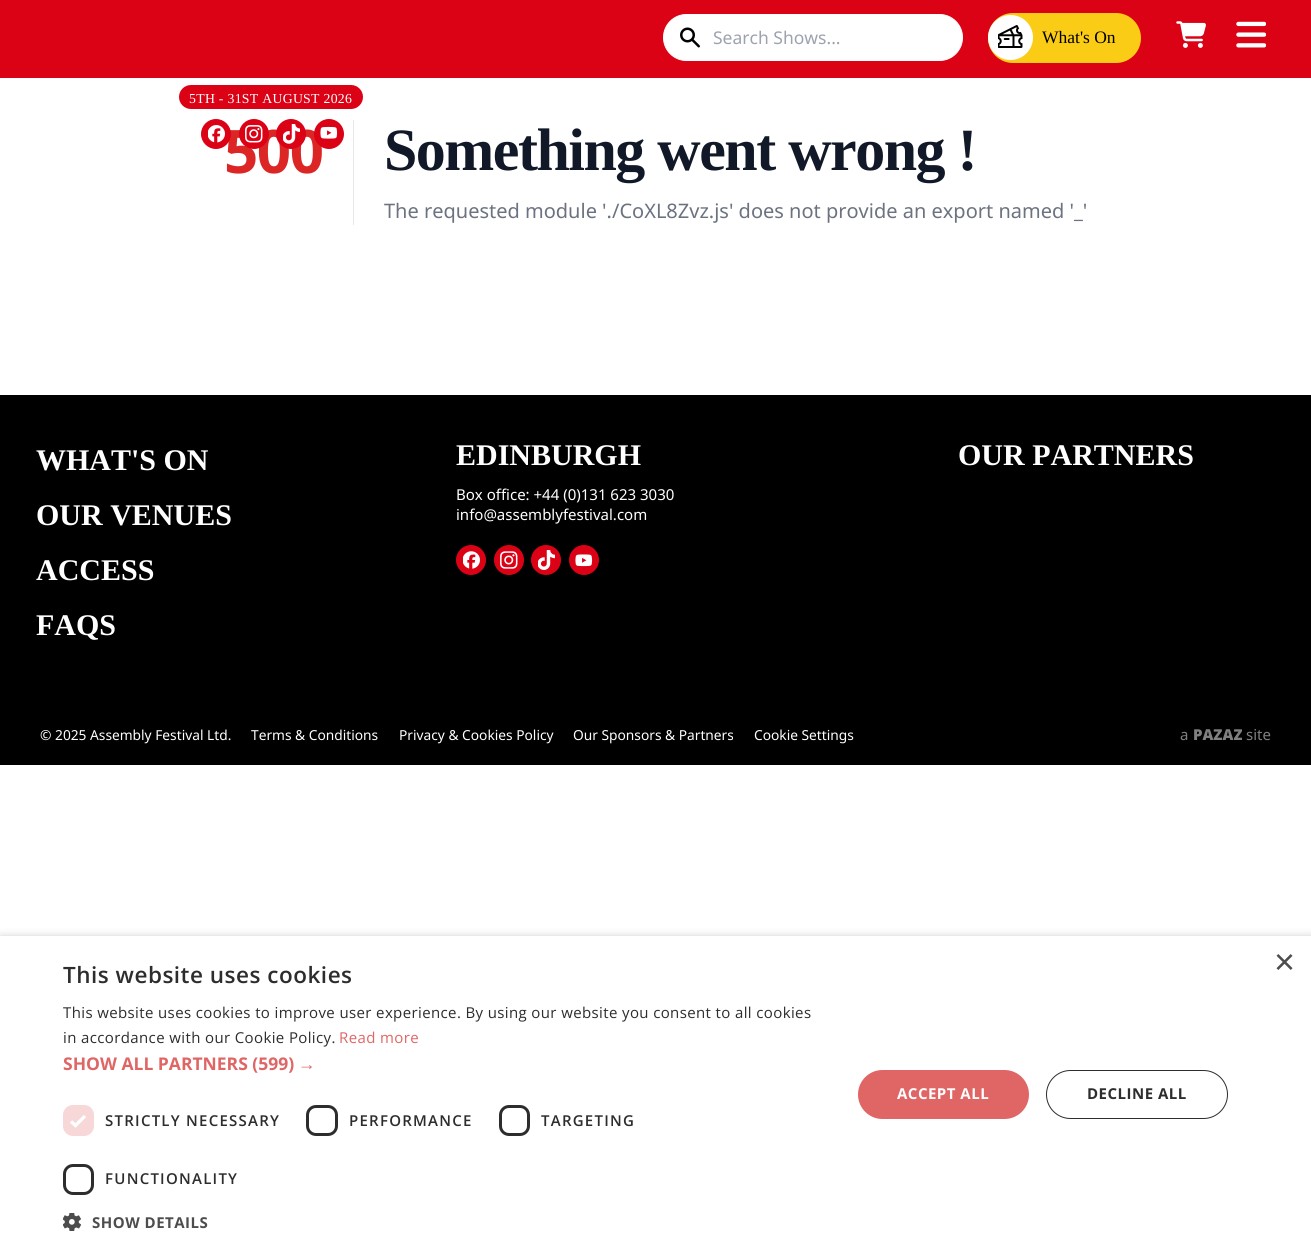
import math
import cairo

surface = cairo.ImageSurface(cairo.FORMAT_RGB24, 1311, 1252)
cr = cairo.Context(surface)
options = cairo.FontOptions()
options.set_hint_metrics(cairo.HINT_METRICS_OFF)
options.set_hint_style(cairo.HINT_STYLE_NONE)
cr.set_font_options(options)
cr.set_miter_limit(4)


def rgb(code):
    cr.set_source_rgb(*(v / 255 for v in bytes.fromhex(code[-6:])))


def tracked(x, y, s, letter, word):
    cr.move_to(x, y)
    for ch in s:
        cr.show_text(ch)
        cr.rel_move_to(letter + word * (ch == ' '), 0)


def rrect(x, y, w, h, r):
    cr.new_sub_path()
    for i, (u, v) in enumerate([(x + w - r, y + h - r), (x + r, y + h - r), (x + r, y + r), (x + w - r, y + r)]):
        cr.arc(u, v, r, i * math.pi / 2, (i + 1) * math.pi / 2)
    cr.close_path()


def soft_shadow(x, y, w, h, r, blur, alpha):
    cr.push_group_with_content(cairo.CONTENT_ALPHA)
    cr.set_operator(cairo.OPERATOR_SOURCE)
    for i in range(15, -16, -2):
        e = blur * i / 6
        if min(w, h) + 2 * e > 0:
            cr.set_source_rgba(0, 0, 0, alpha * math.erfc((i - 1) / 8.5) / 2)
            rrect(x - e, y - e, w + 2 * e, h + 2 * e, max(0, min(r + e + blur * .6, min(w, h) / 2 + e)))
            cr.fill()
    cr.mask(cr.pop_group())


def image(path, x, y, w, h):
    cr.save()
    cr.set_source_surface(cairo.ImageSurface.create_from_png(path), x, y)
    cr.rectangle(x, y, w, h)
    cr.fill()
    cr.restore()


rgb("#ffffff")
cr.paint()
rgb("#db0216")
cr.rectangle(0, 0, 1311, 78)
cr.fill()
rgb("#ffffff")
rrect(663.5, 14.5, 299, 46, 23)
cr.fill_preserve()
cr.set_line_width(1)
cr.stroke()
image("img/1.png", 680, 27, 20, 21)
rgb("#facc15")
rrect(988, 13, 153, 50, 25)
cr.fill()
rgb("#ffffff")
cr.arc(1010.5, 37.5, 22.5, 0, 2 * math.pi)
cr.fill()
image("img/2.png", 998, 25, 25, 23)
image("img/3.png", 1176, 21, 30, 27)
image("img/4.png", 1236, 21, 30, 27)
rgb("#db0216")
rrect(179, 85, 184, 24, 12)
cr.fill()
rgb("#e5e7eb")
cr.rectangle(353, 120, 1, 105)
cr.fill()
rgb("#000000")
cr.rectangle(0, 395, 1311, 370)
cr.fill()
rgb("#db0216")
cr.arc(471, 560, 15, 0, 2 * math.pi)
cr.fill()
image("img/9.png", 463, 551, 17, 18)
cr.arc(509, 560, 15, 0, 2 * math.pi)
cr.fill()
image("img/10.png", 500, 551, 18, 18)
cr.arc(546, 560, 15, 0, 2 * math.pi)
cr.fill()
image("img/11.png", 538, 550, 17, 20)
cr.arc(584, 560, 15, 0, 2 * math.pi)
cr.fill()
image("img/12.png", 575, 554, 18, 13)
rgb("#000000")
soft_shadow(1, 939, 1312, 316, 0, 5, 0.35)
rgb("#ffffff")
cr.rectangle(0, 936, 1311, 316)
cr.fill()
rgb("#f7d7d7")
rrect(63, 1105, 31, 31, 10)
cr.fill()
cr.new_path()
cr.move_to(71, 1121.5)
cr.line_to(75.5, 1125.5)
cr.line_to(85, 1116)
rgb("#ffffff")
cr.set_line_width(3.3)
cr.stroke()
rrect(307.5, 1106.5, 29, 28, 8.5)
rgb("#2d2d2d")
cr.set_line_width(3)
cr.stroke()
rrect(500.5, 1106.5, 28, 28, 8.5)
cr.stroke()
rrect(64.5, 1165.5, 28, 28, 8.5)
cr.stroke()
image("img/13.png", 63, 1213, 18, 18)
rgb("#e06666")
rrect(858, 1070, 171, 49, 24.5)
cr.fill()
rrect(1046.5, 1070.5, 181, 48, 24)
rgb("#2d2d2d")
cr.set_line_width(1)
cr.stroke()
cr.select_font_face("Noto Sans")
cr.set_font_size(17.5)
rgb("#9ca3af")
cr.move_to(713, 44)
cr.show_text("Search Shows...")
cr.select_font_face("Liberation Serif")
rgb("#000000")
cr.move_to(1042, 43)
cr.show_text("What's On")
cr.set_font_size(13.75)
rgb("#ffffff")
tracked(189, 103, "5TH - 31ST AUGUST 2026", 0.3, 0)
cr.select_font_face("Noto Sans", cairo.FONT_SLANT_NORMAL, cairo.FONT_WEIGHT_BOLD)
cr.set_font_size(60)
rgb("#dc2626")
tracked(224, 173, "500", -1.5, 0)
rgb("#db0216")
cr.new_path()
cr.arc(329, 134, 15, 0, 2 * math.pi)
cr.fill()
image("img/8.png", 320, 126, 18, 13)
cr.arc(291, 134, 15, 0, 2 * math.pi)
cr.fill()
image("img/7.png", 283, 124, 17, 20)
cr.arc(254, 134, 15, 0, 2 * math.pi)
cr.fill()
image("img/6.png", 245, 125, 18, 18)
cr.arc(216, 134, 15, 0, 2 * math.pi)
cr.fill()
image("img/5.png", 208, 125, 17, 18)
cr.select_font_face("Liberation Serif", cairo.FONT_SLANT_NORMAL, cairo.FONT_WEIGHT_BOLD)
rgb("#111827")
tracked(384, 170, "Something went wrong !", -1.5, 0)
cr.select_font_face("Noto Sans")
cr.set_font_size(20)
rgb("#6b7280")
cr.move_to(384, 218)
cr.show_text("The requested module './CoXL8Zvz.js' does not provide an export named '_'")
cr.select_font_face("Liberation Serif", cairo.FONT_SLANT_NORMAL, cairo.FONT_WEIGHT_BOLD)
cr.set_font_size(30)
rgb("#ffffff")
for x, y, s in [
    (36, 470, "WHAT'S ON"),
    (36, 525, "OUR VENUES"),
    (36, 580, "ACCESS"),
    (36, 635, "FAQS"),
    (456, 465, "EDINBURGH"),
]:
    cr.move_to(x, y)
    cr.show_text(s)
cr.select_font_face("Noto Sans")
cr.set_font_size(15)
cr.move_to(456, 500)
cr.show_text("Box office: +44 (0)131 623 3030")
cr.move_to(456, 520)
cr.show_text("info@assemblyfestival.com")
cr.select_font_face("Liberation Serif", cairo.FONT_SLANT_NORMAL, cairo.FONT_WEIGHT_BOLD)
cr.set_font_size(30)
cr.move_to(958, 465)
cr.show_text("OUR PARTNERS")
cr.select_font_face("Noto Sans")
cr.set_font_size(13.75)
for x, y, s in [
    (40, 740, "© 2025 Assembly Festival Ltd."),
    (251, 740, "Terms & Conditions"),
    (399, 740, "Privacy & Cookies Policy"),
    (573, 740, "Our Sponsors & Partners"),
    (754, 740, "Cookie Settings"),
]:
    cr.move_to(x, y)
    cr.show_text(s)
cr.set_font_size(15)
rgb("#808080")
cr.move_to(1180, 740)
cr.show_text("a")
cr.select_font_face("Noto Sans Black")
cr.move_to(1193, 740)
cr.show_text("PAZAZ")
cr.select_font_face("Noto Sans")
cr.move_to(1246, 740)
cr.show_text("site")
cr.select_font_face("Liberation Sans")
cr.set_font_size(36)
rgb("#4d4d4d")
cr.move_to(1274, 974)
cr.show_text("×")
cr.select_font_face("Open Sans SemiBold")
cr.set_font_size(22.5)
rgb("#2d2d2d")
tracked(63, 983, "This website uses cookies", 0.5, 0)
cr.select_font_face("Open Sans")
cr.set_font_size(15)
tracked(63, 1018, "This website uses cookies to improve user experience. By using our website you consent to all cookies", 0.38, 0)
tracked(63, 1043, "in accordance with our Cookie Policy.", 0.38, 0)
rgb("#e06666")
tracked(339, 1043, "Read more", 0.38, 0)
cr.select_font_face("Open Sans", cairo.FONT_SLANT_NORMAL, cairo.FONT_WEIGHT_BOLD)
cr.set_font_size(17.5)
cr.move_to(63, 1070)
cr.show_text("SHOW ALL PARTNERS (599)")
cr.select_font_face("Liberation Sans", cairo.FONT_SLANT_NORMAL, cairo.FONT_WEIGHT_BOLD)
cr.move_to(298, 1070)
cr.show_text("→")
cr.select_font_face("Open Sans SemiBold")
cr.set_font_size(15)
rgb("#2d2d2d")
for x, y, s in [
    (105, 1126, "STRICTLY NECESSARY"),
    (349, 1126, "PERFORMANCE"),
    (541, 1126, "TARGETING"),
    (105, 1184, "FUNCTIONALITY"),
]:
    tracked(x, y, s, 1.25, 0)
cr.select_font_face("Open Sans", cairo.FONT_SLANT_NORMAL, cairo.FONT_WEIGHT_BOLD)
rgb("#4d4d4d")
tracked(92, 1228, "SHOW DETAILS", 0.5, 0)
rgb("#ffffff")
tracked(897, 1099, "ACCEPT ALL", 0.5, 0)
rgb("#2d2d2d")
tracked(1087, 1099, "DECLINE ALL", 0.5, 0)
surface.write_to_png("page.png")
